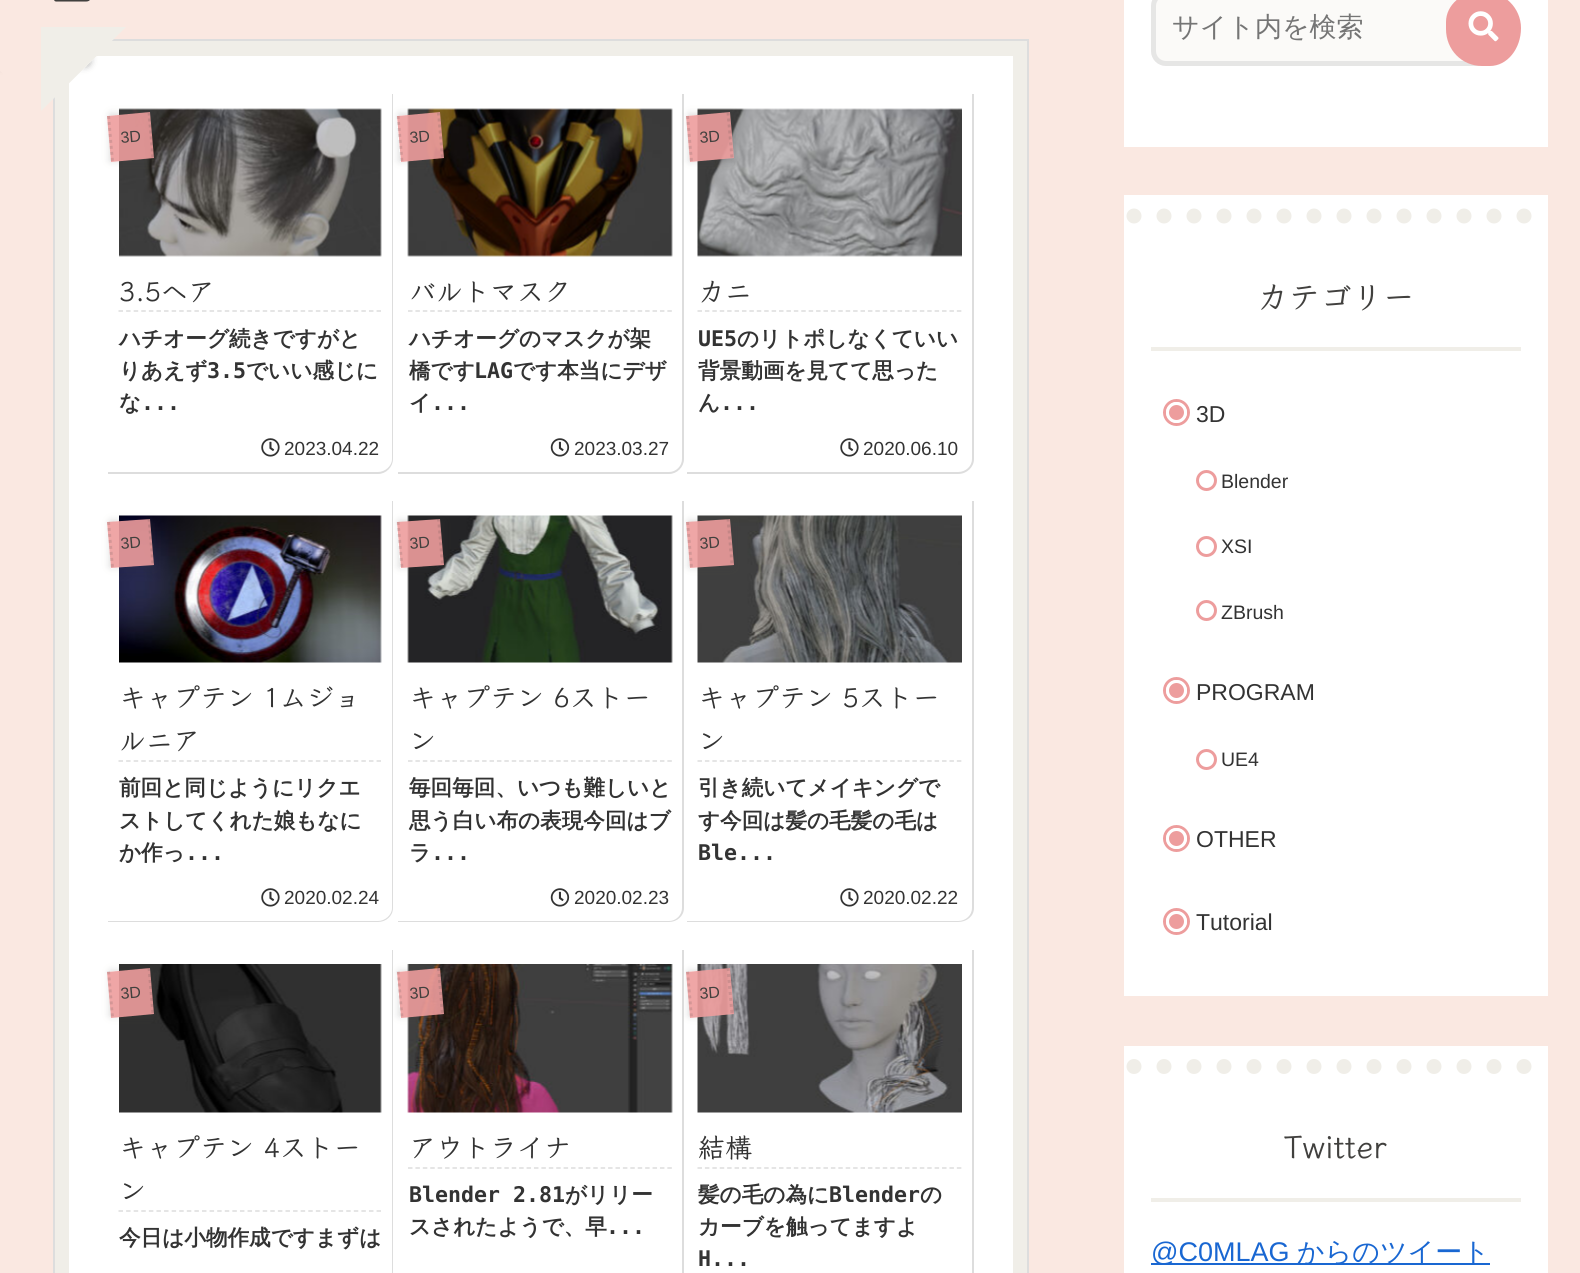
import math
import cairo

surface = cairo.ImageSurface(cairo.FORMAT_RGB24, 1580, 1273)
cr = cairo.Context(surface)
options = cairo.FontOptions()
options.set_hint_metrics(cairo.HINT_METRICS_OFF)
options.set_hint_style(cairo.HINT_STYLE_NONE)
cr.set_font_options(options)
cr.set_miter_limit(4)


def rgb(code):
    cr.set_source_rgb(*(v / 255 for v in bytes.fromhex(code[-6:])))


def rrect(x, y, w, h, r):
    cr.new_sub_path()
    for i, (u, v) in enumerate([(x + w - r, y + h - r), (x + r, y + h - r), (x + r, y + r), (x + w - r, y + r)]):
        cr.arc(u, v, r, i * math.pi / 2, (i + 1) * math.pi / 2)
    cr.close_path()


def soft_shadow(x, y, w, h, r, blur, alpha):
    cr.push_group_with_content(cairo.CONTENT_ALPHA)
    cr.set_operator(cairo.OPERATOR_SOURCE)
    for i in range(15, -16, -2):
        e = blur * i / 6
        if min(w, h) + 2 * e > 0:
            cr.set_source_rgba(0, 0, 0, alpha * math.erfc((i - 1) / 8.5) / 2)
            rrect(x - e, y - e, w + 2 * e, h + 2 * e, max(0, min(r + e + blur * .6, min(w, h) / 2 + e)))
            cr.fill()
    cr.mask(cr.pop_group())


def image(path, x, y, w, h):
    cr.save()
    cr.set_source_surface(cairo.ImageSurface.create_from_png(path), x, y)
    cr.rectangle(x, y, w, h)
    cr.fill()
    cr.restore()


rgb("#fae8e1")
cr.paint()
image("img/1.png", 54, 0, 36, 2)
rgb("#ffffff")
cr.rectangle(61.5, 48.5, 959, 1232)
cr.fill_preserve()
rgb("#f0eee8")
cr.set_line_width(15)
cr.stroke()
cr.rectangle(54, 40, 974, 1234)
rgb("#dddddd")
cr.set_line_width(2)
cr.stroke()
cr.save()
cr.set_fill_rule(cairo.FILL_RULE_EVEN_ODD)
cr.new_path()
cr.move_to(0, 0)
cr.line_to(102, 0)
cr.line_to(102, 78)
cr.line_to(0, 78)
cr.close_path()
cr.move_to(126, 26.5)
cr.line_to(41, 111.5)
cr.line_to(-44, 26.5)
cr.line_to(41, -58.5)
cr.close_path()
cr.clip()
rgb("#41403e")
soft_shadow(-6, -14, 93, 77, 0, 4.5, 1)
cr.restore()
cr.set_fill_rule(cairo.FILL_RULE_EVEN_ODD)
cr.new_path()
cr.move_to(108, 94)
cr.line_to(393, 94)
cr.line_to(393, 459)
cr.curve_to(393, 467, 386, 474, 378, 474)
cr.line_to(108, 474)
cr.close_path()
cr.move_to(108, 94)
cr.line_to(392, 94)
cr.line_to(392, 459)
cr.curve_to(392, 466, 385, 472, 378, 472)
cr.line_to(108, 472)
cr.close_path()
cr.fill()
rgb("#f0eee8")
cr.set_fill_rule(cairo.FILL_RULE_WINDING)
cr.new_path()
cr.move_to(126, 27)
cr.line_to(41, 111)
cr.line_to(41, 27)
cr.close_path()
cr.fill()
image("img/2.png", 119, 108, 263, 149)
cr.save()
cr.set_fill_rule(cairo.FILL_RULE_EVEN_ODD)
cr.new_path()
cr.move_to(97, 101)
cr.line_to(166, 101)
cr.line_to(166, 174)
cr.line_to(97, 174)
cr.close_path()
cr.move_to(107, 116)
cr.line_to(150.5, 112)
cr.line_to(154.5, 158)
cr.line_to(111, 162)
cr.close_path()
cr.clip()
rgb("#41403e")
soft_shadow(110, 114, 43, 47, 0, 4, 0.2)
cr.restore()
cr.set_source_rgba(0.929, 0.616, 0.616, 0.9)
cr.new_path()
cr.move_to(107, 116)
cr.line_to(150, 112)
cr.line_to(154, 158)
cr.line_to(111, 162)
cr.close_path()
cr.fill()
cr.new_path()
cr.move_to(149, 112.5)
cr.line_to(153, 158.5)
cr.move_to(108.5, 116)
cr.line_to(112.5, 162)
cr.set_source_rgba(0.255, 0.251, 0.243, 0.15)
cr.set_line_width(3)
cr.set_dash([3, 3])
cr.stroke()
cr.new_path()
cr.move_to(118.5, 311)
cr.line_to(381, 311)
rgb("#dddddd")
cr.set_line_width(1.5)
cr.set_dash([4.5, 3.09])
cr.stroke()
image("img/3.png", 261, 438, 19, 19)
cr.set_fill_rule(cairo.FILL_RULE_EVEN_ODD)
cr.new_path()
cr.move_to(398, 94)
cr.line_to(684, 94)
cr.line_to(684, 459)
cr.curve_to(684, 467, 677, 474, 669, 474)
cr.line_to(398, 474)
cr.close_path()
cr.move_to(398, 94)
cr.line_to(682, 94)
cr.line_to(682, 459)
cr.curve_to(682, 466, 676, 472, 669, 472)
cr.line_to(398, 472)
cr.close_path()
cr.fill()
image("img/4.png", 407, 108, 266, 149)
cr.save()
cr.new_path()
cr.move_to(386, 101)
cr.line_to(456, 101)
cr.line_to(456, 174)
cr.line_to(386, 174)
cr.close_path()
cr.move_to(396.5, 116)
cr.line_to(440, 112)
cr.line_to(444, 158)
cr.line_to(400.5, 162)
cr.close_path()
cr.clip()
rgb("#41403e")
soft_shadow(399, 114, 44, 47, 0, 4, 0.2)
cr.restore()
cr.set_source_rgba(0.929, 0.616, 0.616, 0.9)
cr.set_fill_rule(cairo.FILL_RULE_WINDING)
cr.new_path()
cr.move_to(397, 116)
cr.line_to(440, 112)
cr.line_to(444, 158)
cr.line_to(401, 162)
cr.close_path()
cr.fill()
cr.new_path()
cr.move_to(438.5, 112.5)
cr.line_to(442.5, 158.5)
cr.move_to(398, 116)
cr.line_to(402, 162)
cr.set_source_rgba(0.255, 0.251, 0.243, 0.15)
cr.set_line_width(3)
cr.set_dash([3, 3])
cr.stroke()
cr.new_path()
cr.move_to(408, 311)
cr.line_to(672, 311)
rgb("#dddddd")
cr.set_line_width(1.5)
cr.set_dash([4.5, 2.91])
cr.stroke()
image("img/5.png", 550, 438, 20, 19)
cr.set_fill_rule(cairo.FILL_RULE_EVEN_ODD)
cr.new_path()
cr.move_to(687, 94)
cr.line_to(974, 94)
cr.line_to(974, 459)
cr.curve_to(974, 467, 967, 474, 958, 474)
cr.line_to(687, 474)
cr.close_path()
cr.move_to(687, 94)
cr.line_to(972, 94)
cr.line_to(972, 459)
cr.curve_to(972, 466, 966, 472, 958, 472)
cr.line_to(687, 472)
cr.close_path()
cr.fill()
image("img/6.png", 697, 108, 265, 149)
cr.save()
cr.new_path()
cr.move_to(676, 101)
cr.line_to(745, 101)
cr.line_to(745, 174)
cr.line_to(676, 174)
cr.close_path()
cr.move_to(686, 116)
cr.line_to(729.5, 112)
cr.line_to(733.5, 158)
cr.line_to(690, 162)
cr.close_path()
cr.clip()
rgb("#41403e")
soft_shadow(689, 114, 43, 47, 0, 4, 0.2)
cr.restore()
cr.set_source_rgba(0.929, 0.616, 0.616, 0.9)
cr.set_fill_rule(cairo.FILL_RULE_WINDING)
cr.new_path()
cr.move_to(686, 116)
cr.line_to(730, 112)
cr.line_to(734, 158)
cr.line_to(690, 162)
cr.close_path()
cr.fill()
cr.new_path()
cr.move_to(728, 112.5)
cr.line_to(732, 158.5)
cr.move_to(687.5, 116)
cr.line_to(691.5, 162)
cr.set_source_rgba(0.255, 0.251, 0.243, 0.15)
cr.set_line_width(3)
cr.set_dash([3, 3])
cr.stroke()
cr.new_path()
cr.move_to(697.5, 311)
cr.line_to(961.5, 311)
rgb("#dddddd")
cr.set_line_width(1.5)
cr.set_dash([4.5, 2.91])
cr.stroke()
image("img/3.png", 840, 438, 19, 19)
cr.set_fill_rule(cairo.FILL_RULE_EVEN_ODD)
cr.new_path()
cr.move_to(108, 501)
cr.line_to(393, 501)
cr.line_to(393, 908)
cr.curve_to(393, 916, 386, 922, 378, 922)
cr.line_to(108, 922)
cr.close_path()
cr.move_to(108, 501)
cr.line_to(392, 501)
cr.line_to(392, 908)
cr.curve_to(392, 915, 385, 921, 378, 921)
cr.line_to(108, 921)
cr.close_path()
cr.fill()
image("img/7.png", 119, 515, 263, 148)
cr.save()
cr.new_path()
cr.move_to(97, 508)
cr.line_to(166, 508)
cr.line_to(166, 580)
cr.line_to(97, 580)
cr.close_path()
cr.move_to(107, 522.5)
cr.line_to(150.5, 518.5)
cr.line_to(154.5, 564.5)
cr.line_to(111, 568.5)
cr.close_path()
cr.clip()
rgb("#41403e")
soft_shadow(110, 521, 43, 46, 0, 4, 0.2)
cr.restore()
cr.set_source_rgba(0.929, 0.616, 0.616, 0.9)
cr.set_fill_rule(cairo.FILL_RULE_WINDING)
cr.new_path()
cr.move_to(107, 522)
cr.line_to(150, 519)
cr.line_to(154, 565)
cr.line_to(111, 568)
cr.close_path()
cr.fill()
cr.new_path()
cr.move_to(149, 518.5)
cr.line_to(153, 564.5)
cr.move_to(108.5, 522)
cr.line_to(112.5, 568)
cr.set_source_rgba(0.255, 0.251, 0.243, 0.15)
cr.set_line_width(3)
cr.set_dash([3, 3])
cr.stroke()
cr.new_path()
cr.move_to(118.5, 761)
cr.line_to(381, 761)
rgb("#dddddd")
cr.set_line_width(1.5)
cr.set_dash([4.5, 3.09])
cr.stroke()
image("img/3.png", 261, 888, 19, 19)
cr.set_fill_rule(cairo.FILL_RULE_EVEN_ODD)
cr.new_path()
cr.move_to(398, 501)
cr.line_to(684, 501)
cr.line_to(684, 908)
cr.curve_to(684, 916, 677, 922, 669, 922)
cr.line_to(398, 922)
cr.close_path()
cr.move_to(398, 501)
cr.line_to(682, 501)
cr.line_to(682, 908)
cr.curve_to(682, 915, 676, 921, 669, 921)
cr.line_to(398, 921)
cr.close_path()
cr.fill()
image("img/8.png", 407, 515, 266, 148)
cr.save()
cr.new_path()
cr.move_to(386, 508)
cr.line_to(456, 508)
cr.line_to(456, 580)
cr.line_to(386, 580)
cr.close_path()
cr.move_to(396.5, 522.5)
cr.line_to(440, 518.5)
cr.line_to(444, 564.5)
cr.line_to(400.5, 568.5)
cr.close_path()
cr.clip()
rgb("#41403e")
soft_shadow(399, 521, 44, 46, 0, 4, 0.2)
cr.restore()
cr.set_source_rgba(0.929, 0.616, 0.616, 0.9)
cr.set_fill_rule(cairo.FILL_RULE_WINDING)
cr.new_path()
cr.move_to(397, 522)
cr.line_to(440, 519)
cr.line_to(444, 565)
cr.line_to(401, 568)
cr.close_path()
cr.fill()
cr.new_path()
cr.move_to(438.5, 518.5)
cr.line_to(442.5, 564.5)
cr.move_to(398, 522)
cr.line_to(402, 568)
cr.set_source_rgba(0.255, 0.251, 0.243, 0.15)
cr.set_line_width(3)
cr.set_dash([3, 3])
cr.stroke()
cr.new_path()
cr.move_to(408, 761)
cr.line_to(672, 761)
rgb("#dddddd")
cr.set_line_width(1.5)
cr.set_dash([4.5, 2.91])
cr.stroke()
image("img/5.png", 550, 888, 20, 19)
cr.set_fill_rule(cairo.FILL_RULE_EVEN_ODD)
cr.new_path()
cr.move_to(687, 501)
cr.line_to(974, 501)
cr.line_to(974, 908)
cr.curve_to(974, 916, 967, 922, 958, 922)
cr.line_to(687, 922)
cr.close_path()
cr.move_to(687, 501)
cr.line_to(972, 501)
cr.line_to(972, 908)
cr.curve_to(972, 915, 966, 921, 958, 921)
cr.line_to(687, 921)
cr.close_path()
cr.fill()
image("img/9.png", 697, 515, 265, 148)
cr.save()
cr.new_path()
cr.move_to(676, 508)
cr.line_to(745, 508)
cr.line_to(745, 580)
cr.line_to(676, 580)
cr.close_path()
cr.move_to(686, 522.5)
cr.line_to(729.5, 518.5)
cr.line_to(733.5, 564.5)
cr.line_to(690, 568.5)
cr.close_path()
cr.clip()
rgb("#41403e")
soft_shadow(689, 521, 43, 46, 0, 4, 0.2)
cr.restore()
cr.set_source_rgba(0.929, 0.616, 0.616, 0.9)
cr.set_fill_rule(cairo.FILL_RULE_WINDING)
cr.new_path()
cr.move_to(686, 522)
cr.line_to(730, 519)
cr.line_to(734, 565)
cr.line_to(690, 568)
cr.close_path()
cr.fill()
cr.new_path()
cr.move_to(728, 518.5)
cr.line_to(732, 564.5)
cr.move_to(687.5, 522)
cr.line_to(691.5, 568)
cr.set_source_rgba(0.255, 0.251, 0.243, 0.15)
cr.set_line_width(3)
cr.set_dash([3, 3])
cr.stroke()
cr.new_path()
cr.move_to(697.5, 761)
cr.line_to(961.5, 761)
rgb("#dddddd")
cr.set_line_width(1.5)
cr.set_dash([4.5, 2.91])
cr.stroke()
image("img/3.png", 840, 888, 19, 19)
cr.set_fill_rule(cairo.FILL_RULE_EVEN_ODD)
cr.new_path()
cr.move_to(108, 950)
cr.line_to(393, 950)
cr.line_to(393, 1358)
cr.curve_to(393, 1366, 386, 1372, 378, 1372)
cr.line_to(108, 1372)
cr.close_path()
cr.move_to(108, 950)
cr.line_to(392, 950)
cr.line_to(392, 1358)
cr.curve_to(392, 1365, 385, 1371, 378, 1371)
cr.line_to(108, 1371)
cr.close_path()
cr.fill()
image("img/10.png", 119, 964, 263, 149)
cr.save()
cr.new_path()
cr.move_to(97, 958)
cr.line_to(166, 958)
cr.line_to(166, 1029)
cr.line_to(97, 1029)
cr.close_path()
cr.move_to(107, 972)
cr.line_to(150.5, 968)
cr.line_to(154.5, 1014)
cr.line_to(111, 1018)
cr.close_path()
cr.clip()
rgb("#41403e")
soft_shadow(110, 971, 43, 45, 0, 4, 0.2)
cr.restore()
cr.set_source_rgba(0.929, 0.616, 0.616, 0.9)
cr.set_fill_rule(cairo.FILL_RULE_WINDING)
cr.new_path()
cr.move_to(107, 972)
cr.line_to(150, 968)
cr.line_to(154, 1014)
cr.line_to(111, 1018)
cr.close_path()
cr.fill()
cr.new_path()
cr.move_to(149, 968)
cr.line_to(153, 1014)
cr.move_to(108.5, 971.5)
cr.line_to(112.5, 1017.5)
cr.set_source_rgba(0.255, 0.251, 0.243, 0.15)
cr.set_line_width(3)
cr.set_dash([3, 3])
cr.stroke()
cr.new_path()
cr.move_to(118.5, 1211)
cr.line_to(381, 1211)
rgb("#dddddd")
cr.set_line_width(1.5)
cr.set_dash([4.5, 3.09])
cr.stroke()
cr.set_fill_rule(cairo.FILL_RULE_EVEN_ODD)
cr.new_path()
cr.move_to(398, 950)
cr.line_to(684, 950)
cr.line_to(684, 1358)
cr.curve_to(684, 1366, 677, 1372, 669, 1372)
cr.line_to(398, 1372)
cr.close_path()
cr.move_to(398, 950)
cr.line_to(682, 950)
cr.line_to(682, 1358)
cr.curve_to(682, 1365, 676, 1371, 669, 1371)
cr.line_to(398, 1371)
cr.close_path()
cr.fill()
image("img/11.png", 407, 964, 266, 149)
cr.save()
cr.new_path()
cr.move_to(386, 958)
cr.line_to(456, 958)
cr.line_to(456, 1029)
cr.line_to(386, 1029)
cr.close_path()
cr.move_to(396.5, 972)
cr.line_to(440, 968)
cr.line_to(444, 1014)
cr.line_to(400.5, 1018)
cr.close_path()
cr.clip()
rgb("#41403e")
soft_shadow(399, 971, 44, 45, 0, 4, 0.2)
cr.restore()
cr.set_source_rgba(0.929, 0.616, 0.616, 0.9)
cr.set_fill_rule(cairo.FILL_RULE_WINDING)
cr.new_path()
cr.move_to(397, 972)
cr.line_to(440, 968)
cr.line_to(444, 1014)
cr.line_to(401, 1018)
cr.close_path()
cr.fill()
cr.new_path()
cr.move_to(438.5, 968)
cr.line_to(442.5, 1014)
cr.move_to(398, 971.5)
cr.line_to(402, 1017.5)
cr.set_source_rgba(0.255, 0.251, 0.243, 0.15)
cr.set_line_width(3)
cr.set_dash([3, 3])
cr.stroke()
cr.new_path()
cr.move_to(408, 1168)
cr.line_to(672, 1168)
rgb("#dddddd")
cr.set_line_width(1.5)
cr.set_dash([4.5, 2.91])
cr.stroke()
cr.set_fill_rule(cairo.FILL_RULE_EVEN_ODD)
cr.new_path()
cr.move_to(687, 950)
cr.line_to(974, 950)
cr.line_to(974, 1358)
cr.curve_to(974, 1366, 967, 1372, 958, 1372)
cr.line_to(687, 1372)
cr.close_path()
cr.move_to(687, 950)
cr.line_to(972, 950)
cr.line_to(972, 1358)
cr.curve_to(972, 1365, 966, 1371, 958, 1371)
cr.line_to(687, 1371)
cr.close_path()
cr.fill()
image("img/12.png", 697, 964, 265, 149)
cr.save()
cr.new_path()
cr.move_to(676, 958)
cr.line_to(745, 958)
cr.line_to(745, 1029)
cr.line_to(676, 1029)
cr.close_path()
cr.move_to(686, 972)
cr.line_to(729.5, 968)
cr.line_to(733.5, 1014)
cr.line_to(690, 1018)
cr.close_path()
cr.clip()
rgb("#41403e")
soft_shadow(689, 971, 43, 45, 0, 4, 0.2)
cr.restore()
cr.set_source_rgba(0.929, 0.616, 0.616, 0.9)
cr.set_fill_rule(cairo.FILL_RULE_WINDING)
cr.new_path()
cr.move_to(686, 972)
cr.line_to(730, 968)
cr.line_to(734, 1014)
cr.line_to(690, 1018)
cr.close_path()
cr.fill()
cr.new_path()
cr.move_to(728, 968)
cr.line_to(732, 1014)
cr.move_to(687.5, 971.5)
cr.line_to(691.5, 1017.5)
cr.set_source_rgba(0.255, 0.251, 0.243, 0.15)
cr.set_line_width(3)
cr.set_dash([3, 3])
cr.stroke()
cr.new_path()
cr.move_to(697.5, 1168)
cr.line_to(961.5, 1168)
rgb("#dddddd")
cr.set_line_width(1.5)
cr.set_dash([4.5, 2.91])
cr.stroke()
rgb("#ffffff")
cr.rectangle(1124, 0, 424, 147)
cr.fill()
rgb("#fbfaf8")
rrect(1151, -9, 340, 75, 15)
cr.fill()
rrect(1153.5, -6.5, 335, 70, 12.5)
cr.set_source_rgba(0.867, 0.867, 0.867, 0.7)
cr.set_line_width(5)
cr.set_dash([])
cr.stroke()
rgb("#ed9d9d")
cr.new_path()
cr.move_to(1482, -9)
cr.line_to(1483, -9)
cr.curve_to(1504, -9, 1521, 8, 1521, 28)
cr.curve_to(1521, 49, 1507, 66, 1490, 66)
cr.line_to(1482, 66)
cr.curve_to(1462, 66, 1446, 50, 1446, 29)
cr.line_to(1446, 22)
cr.curve_to(1446, 5, 1462, -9, 1482, -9)
cr.close_path()
cr.fill()
image("img/13.png", 1468, 11, 31, 31)
rgb("#ffffff")
cr.rectangle(1124, 195, 424, 801)
cr.fill()
cr.new_path()
cr.move_to(1134, 216)
cr.line_to(1537.5, 216)
rgb("#f0eee8")
cr.set_line_width(15)
cr.set_line_cap(cairo.LINE_CAP_ROUND)
cr.set_dash([0, 30])
cr.stroke()
cr.rectangle(1151, 347, 370, 4)
cr.fill()
cr.arc(1176.5, 412.5, 12, 0, 2 * math.pi)
rgb("#ed9d9d")
cr.set_line_width(3)
cr.set_line_cap(cairo.LINE_CAP_BUTT)
cr.set_dash([])
cr.stroke()
cr.arc(1176.5, 412.5, 9, 0, 2 * math.pi)
cr.fill_preserve()
rgb("#ffffff")
cr.stroke()
cr.arc(1206.5, 480.5, 9, 0, 2 * math.pi)
rgb("#ed9d9d")
cr.stroke()
cr.arc(1206.5, 546.5, 9, 0, 2 * math.pi)
cr.stroke()
cr.arc(1206.5, 610.5, 9, 0, 2 * math.pi)
cr.stroke()
cr.arc(1176.5, 690.5, 12, 0, 2 * math.pi)
cr.stroke()
cr.arc(1176.5, 690.5, 9, 0, 2 * math.pi)
cr.fill_preserve()
rgb("#ffffff")
cr.stroke()
cr.arc(1206.5, 759.5, 9, 0, 2 * math.pi)
rgb("#ed9d9d")
cr.stroke()
cr.arc(1176.5, 838.5, 12, 0, 2 * math.pi)
cr.stroke()
cr.arc(1176.5, 838.5, 9, 0, 2 * math.pi)
cr.fill_preserve()
rgb("#ffffff")
cr.stroke()
cr.arc(1176.5, 921.5, 12, 0, 2 * math.pi)
rgb("#ed9d9d")
cr.stroke()
cr.arc(1176.5, 921.5, 9, 0, 2 * math.pi)
cr.fill_preserve()
rgb("#ffffff")
cr.stroke()
cr.rectangle(1124, 1046, 424, 227)
cr.fill()
cr.new_path()
cr.move_to(1134, 1066.5)
cr.line_to(1537.5, 1066.5)
rgb("#f0eee8")
cr.set_line_width(15)
cr.set_line_cap(cairo.LINE_CAP_ROUND)
cr.set_dash([0, 30])
cr.stroke()
cr.rectangle(1151, 1198, 370, 4)
cr.fill()
rgb("#1967d2")
cr.rectangle(1151, 1263, 339, 2)
cr.fill()
cr.select_font_face("Liberation Sans")
cr.set_font_size(16)
rgb("#41403e")
cr.save()
cr.translate(121, 143)
cr.rotate(-5 * math.pi / 180)
cr.move_to(0, 0)
cr.show_text("3D")
cr.restore()
cr.select_font_face("Klee One SemiBold")
cr.set_font_size(27)
rgb("#333333")
cr.move_to(119, 301)
cr.show_text("3.5ヘア")
cr.select_font_face("WenQuanYi Zen Hei", cairo.FONT_SLANT_NORMAL, cairo.FONT_WEIGHT_BOLD)
cr.set_font_size(21.6)
cr.move_to(119, 346)
cr.show_text("ハチオーグ続きですがと")
cr.move_to(119, 378)
cr.show_text("りあえず")
cr.select_font_face("DejaVu Sans Mono", cairo.FONT_SLANT_NORMAL, cairo.FONT_WEIGHT_BOLD)
cr.move_to(207, 378)
cr.show_text("3.5")
cr.select_font_face("WenQuanYi Zen Hei", cairo.FONT_SLANT_NORMAL, cairo.FONT_WEIGHT_BOLD)
cr.move_to(246, 378)
cr.show_text("でいい感じに")
cr.move_to(119, 410)
cr.show_text("な")
cr.select_font_face("DejaVu Sans Mono", cairo.FONT_SLANT_NORMAL, cairo.FONT_WEIGHT_BOLD)
cr.move_to(141, 410)
cr.show_text("...")
cr.select_font_face("Liberation Sans")
cr.set_font_size(19)
cr.move_to(284, 455)
cr.show_text("2023.04.22")
cr.set_font_size(16)
rgb("#41403e")
cr.save()
cr.translate(410, 143)
cr.rotate(-5 * math.pi / 180)
cr.move_to(0, 0)
cr.show_text("3D")
cr.restore()
cr.select_font_face("Klee One SemiBold")
cr.set_font_size(27)
rgb("#333333")
cr.move_to(409, 301)
cr.show_text("バルトマスク")
cr.select_font_face("WenQuanYi Zen Hei", cairo.FONT_SLANT_NORMAL, cairo.FONT_WEIGHT_BOLD)
cr.set_font_size(21.6)
cr.move_to(409, 346)
cr.show_text("ハチオーグのマスクが架")
cr.move_to(409, 378)
cr.show_text("橋です")
cr.select_font_face("DejaVu Sans Mono", cairo.FONT_SLANT_NORMAL, cairo.FONT_WEIGHT_BOLD)
cr.move_to(474, 378)
cr.show_text("LAG")
cr.select_font_face("WenQuanYi Zen Hei", cairo.FONT_SLANT_NORMAL, cairo.FONT_WEIGHT_BOLD)
cr.move_to(513, 378)
cr.show_text("です本当にデザ")
cr.move_to(409, 410)
cr.show_text("イ")
cr.select_font_face("DejaVu Sans Mono", cairo.FONT_SLANT_NORMAL, cairo.FONT_WEIGHT_BOLD)
cr.move_to(431, 410)
cr.show_text("...")
cr.select_font_face("Liberation Sans")
cr.set_font_size(19)
cr.move_to(574, 455)
cr.show_text("2023.03.27")
cr.set_font_size(16)
rgb("#41403e")
cr.save()
cr.translate(700, 143)
cr.rotate(-5 * math.pi / 180)
cr.move_to(0, 0)
cr.show_text("3D")
cr.restore()
cr.select_font_face("Klee One SemiBold")
cr.set_font_size(27)
rgb("#333333")
cr.move_to(698, 301)
cr.show_text("カニ")
cr.select_font_face("DejaVu Sans Mono", cairo.FONT_SLANT_NORMAL, cairo.FONT_WEIGHT_BOLD)
cr.set_font_size(21.6)
cr.move_to(698, 346)
cr.show_text("UE5")
cr.select_font_face("WenQuanYi Zen Hei", cairo.FONT_SLANT_NORMAL, cairo.FONT_WEIGHT_BOLD)
for x, y, s in [
    (737, 346, "のリトポしなくていい"),
    (698, 378, "背景動画を見てて思った"),
    (698, 410, "ん"),
]:
    cr.move_to(x, y)
    cr.show_text(s)
cr.select_font_face("DejaVu Sans Mono", cairo.FONT_SLANT_NORMAL, cairo.FONT_WEIGHT_BOLD)
cr.move_to(720, 410)
cr.show_text("...")
cr.select_font_face("Liberation Sans")
cr.set_font_size(19)
cr.move_to(863, 455)
cr.show_text("2020.06.10")
cr.set_font_size(16)
rgb("#41403e")
cr.save()
cr.translate(121, 549)
cr.rotate(-5 * math.pi / 180)
cr.move_to(0, 0)
cr.show_text("3D")
cr.restore()
cr.select_font_face("Klee One SemiBold")
cr.set_font_size(27)
rgb("#333333")
cr.move_to(119, 707)
cr.show_text("キャプテン 1ムジョ")
cr.move_to(119, 750)
cr.show_text("ルニア")
cr.select_font_face("WenQuanYi Zen Hei", cairo.FONT_SLANT_NORMAL, cairo.FONT_WEIGHT_BOLD)
cr.set_font_size(21.6)
for x, y, s in [
    (119, 795, "前回と同じようにリクエ"),
    (119, 828, "ストしてくれた娘もなに"),
    (119, 860, "か作っ"),
]:
    cr.move_to(x, y)
    cr.show_text(s)
cr.select_font_face("DejaVu Sans Mono", cairo.FONT_SLANT_NORMAL, cairo.FONT_WEIGHT_BOLD)
cr.move_to(185, 860)
cr.show_text("...")
cr.select_font_face("Liberation Sans")
cr.set_font_size(19)
cr.move_to(284, 904)
cr.show_text("2020.02.24")
cr.set_font_size(16)
rgb("#41403e")
cr.save()
cr.translate(410, 549)
cr.rotate(-5 * math.pi / 180)
cr.move_to(0, 0)
cr.show_text("3D")
cr.restore()
cr.select_font_face("Klee One SemiBold")
cr.set_font_size(27)
rgb("#333333")
cr.move_to(409, 707)
cr.show_text("キャプテン 6ストー")
cr.move_to(409, 750)
cr.show_text("ン")
cr.select_font_face("WenQuanYi Zen Hei", cairo.FONT_SLANT_NORMAL, cairo.FONT_WEIGHT_BOLD)
cr.set_font_size(21.6)
for x, y, s in [
    (409, 795, "毎回毎回、いつも難しいと"),
    (409, 828, "思う白い布の表現今回はブ"),
    (409, 860, "ラ"),
]:
    cr.move_to(x, y)
    cr.show_text(s)
cr.select_font_face("DejaVu Sans Mono", cairo.FONT_SLANT_NORMAL, cairo.FONT_WEIGHT_BOLD)
cr.move_to(431, 860)
cr.show_text("...")
cr.select_font_face("Liberation Sans")
cr.set_font_size(19)
cr.move_to(574, 904)
cr.show_text("2020.02.23")
cr.set_font_size(16)
rgb("#41403e")
cr.save()
cr.translate(700, 549)
cr.rotate(-5 * math.pi / 180)
cr.move_to(0, 0)
cr.show_text("3D")
cr.restore()
cr.select_font_face("Klee One SemiBold")
cr.set_font_size(27)
rgb("#333333")
cr.move_to(698, 707)
cr.show_text("キャプテン 5ストー")
cr.move_to(698, 750)
cr.show_text("ン")
cr.select_font_face("WenQuanYi Zen Hei", cairo.FONT_SLANT_NORMAL, cairo.FONT_WEIGHT_BOLD)
cr.set_font_size(21.6)
cr.move_to(698, 795)
cr.show_text("引き続いてメイキングで")
cr.move_to(698, 828)
cr.show_text("す今回は髪の毛髪の毛は")
cr.select_font_face("DejaVu Sans Mono", cairo.FONT_SLANT_NORMAL, cairo.FONT_WEIGHT_BOLD)
cr.move_to(698, 860)
cr.show_text("Ble...")
cr.select_font_face("Liberation Sans")
cr.set_font_size(19)
cr.move_to(863, 904)
cr.show_text("2020.02.22")
cr.set_font_size(16)
rgb("#41403e")
cr.save()
cr.translate(121, 999)
cr.rotate(-5 * math.pi / 180)
cr.move_to(0, 0)
cr.show_text("3D")
cr.restore()
cr.select_font_face("Klee One SemiBold")
cr.set_font_size(27)
rgb("#333333")
cr.move_to(119, 1157)
cr.show_text("キャプテン 4ストー")
cr.move_to(119, 1200)
cr.show_text("ン")
cr.select_font_face("WenQuanYi Zen Hei", cairo.FONT_SLANT_NORMAL, cairo.FONT_WEIGHT_BOLD)
cr.set_font_size(21.6)
cr.move_to(119, 1245)
cr.show_text("今日は小物作成ですまずは")
cr.select_font_face("Liberation Sans")
cr.set_font_size(16)
rgb("#41403e")
cr.save()
cr.translate(410, 999)
cr.rotate(-5 * math.pi / 180)
cr.move_to(0, 0)
cr.show_text("3D")
cr.restore()
cr.select_font_face("Klee One SemiBold")
cr.set_font_size(27)
rgb("#333333")
cr.move_to(409, 1157)
cr.show_text("アウトライナ")
cr.select_font_face("DejaVu Sans Mono", cairo.FONT_SLANT_NORMAL, cairo.FONT_WEIGHT_BOLD)
cr.set_font_size(21.6)
cr.move_to(409, 1202)
cr.show_text("Blender 2.81")
cr.select_font_face("WenQuanYi Zen Hei", cairo.FONT_SLANT_NORMAL, cairo.FONT_WEIGHT_BOLD)
cr.move_to(565, 1202)
cr.show_text("がリリー")
cr.move_to(409, 1234)
cr.show_text("スされたようで、早")
cr.select_font_face("DejaVu Sans Mono", cairo.FONT_SLANT_NORMAL, cairo.FONT_WEIGHT_BOLD)
cr.move_to(606, 1234)
cr.show_text("...")
cr.select_font_face("Liberation Sans")
cr.set_font_size(16)
rgb("#41403e")
cr.save()
cr.translate(700, 999)
cr.rotate(-5 * math.pi / 180)
cr.move_to(0, 0)
cr.show_text("3D")
cr.restore()
cr.select_font_face("Klee One SemiBold")
cr.set_font_size(27)
rgb("#333333")
cr.move_to(698, 1157)
cr.show_text("結構")
cr.select_font_face("WenQuanYi Zen Hei", cairo.FONT_SLANT_NORMAL, cairo.FONT_WEIGHT_BOLD)
cr.set_font_size(21.6)
cr.move_to(698, 1202)
cr.show_text("髪の毛の為に")
cr.select_font_face("DejaVu Sans Mono", cairo.FONT_SLANT_NORMAL, cairo.FONT_WEIGHT_BOLD)
cr.move_to(829, 1202)
cr.show_text("Blender")
cr.select_font_face("WenQuanYi Zen Hei", cairo.FONT_SLANT_NORMAL, cairo.FONT_WEIGHT_BOLD)
cr.move_to(920, 1202)
cr.show_text("の")
cr.move_to(698, 1234)
cr.show_text("カーブを触ってますよ")
cr.select_font_face("DejaVu Sans Mono", cairo.FONT_SLANT_NORMAL, cairo.FONT_WEIGHT_BOLD)
cr.move_to(698, 1266)
cr.show_text("H...")
cr.select_font_face("WenQuanYi Zen Hei Medium")
cr.set_font_size(27)
rgb("#757575")
cr.move_to(1172, 36)
cr.show_text("サイト内を検索")
cr.select_font_face("Klee One SemiBold")
cr.set_font_size(31.5)
rgb("#41403e")
cr.move_to(1257, 308)
cr.show_text("カテゴリー")
cr.select_font_face("Liberation Sans")
cr.set_font_size(23)
rgb("#333333")
cr.move_to(1196, 422)
cr.show_text("3D")
cr.set_font_size(19.5)
for x, y, s in [
    (1221, 488, "Blender"),
    (1221, 553, "XSI"),
    (1221, 619, "ZBrush"),
]:
    cr.move_to(x, y)
    cr.show_text(s)
cr.set_font_size(23)
cr.move_to(1196, 700)
cr.show_text("PROGRAM")
cr.set_font_size(19.5)
cr.move_to(1221, 766)
cr.show_text("UE4")
cr.set_font_size(23)
cr.move_to(1196, 847)
cr.show_text("OTHER")
cr.move_to(1196, 930)
cr.show_text("Tutorial")
cr.select_font_face("Klee One SemiBold")
cr.set_font_size(31.5)
rgb("#41403e")
cr.move_to(1284, 1158)
cr.show_text("Twitter")
cr.select_font_face("Liberation Sans")
cr.set_font_size(27)
rgb("#1967d2")
cr.move_to(1151, 1261)
cr.show_text("@C0MLAG")
cr.select_font_face("WenQuanYi Zen Hei Medium")
cr.move_to(1297, 1261)
cr.show_text("からのツイート")
surface.write_to_png("page.png")
